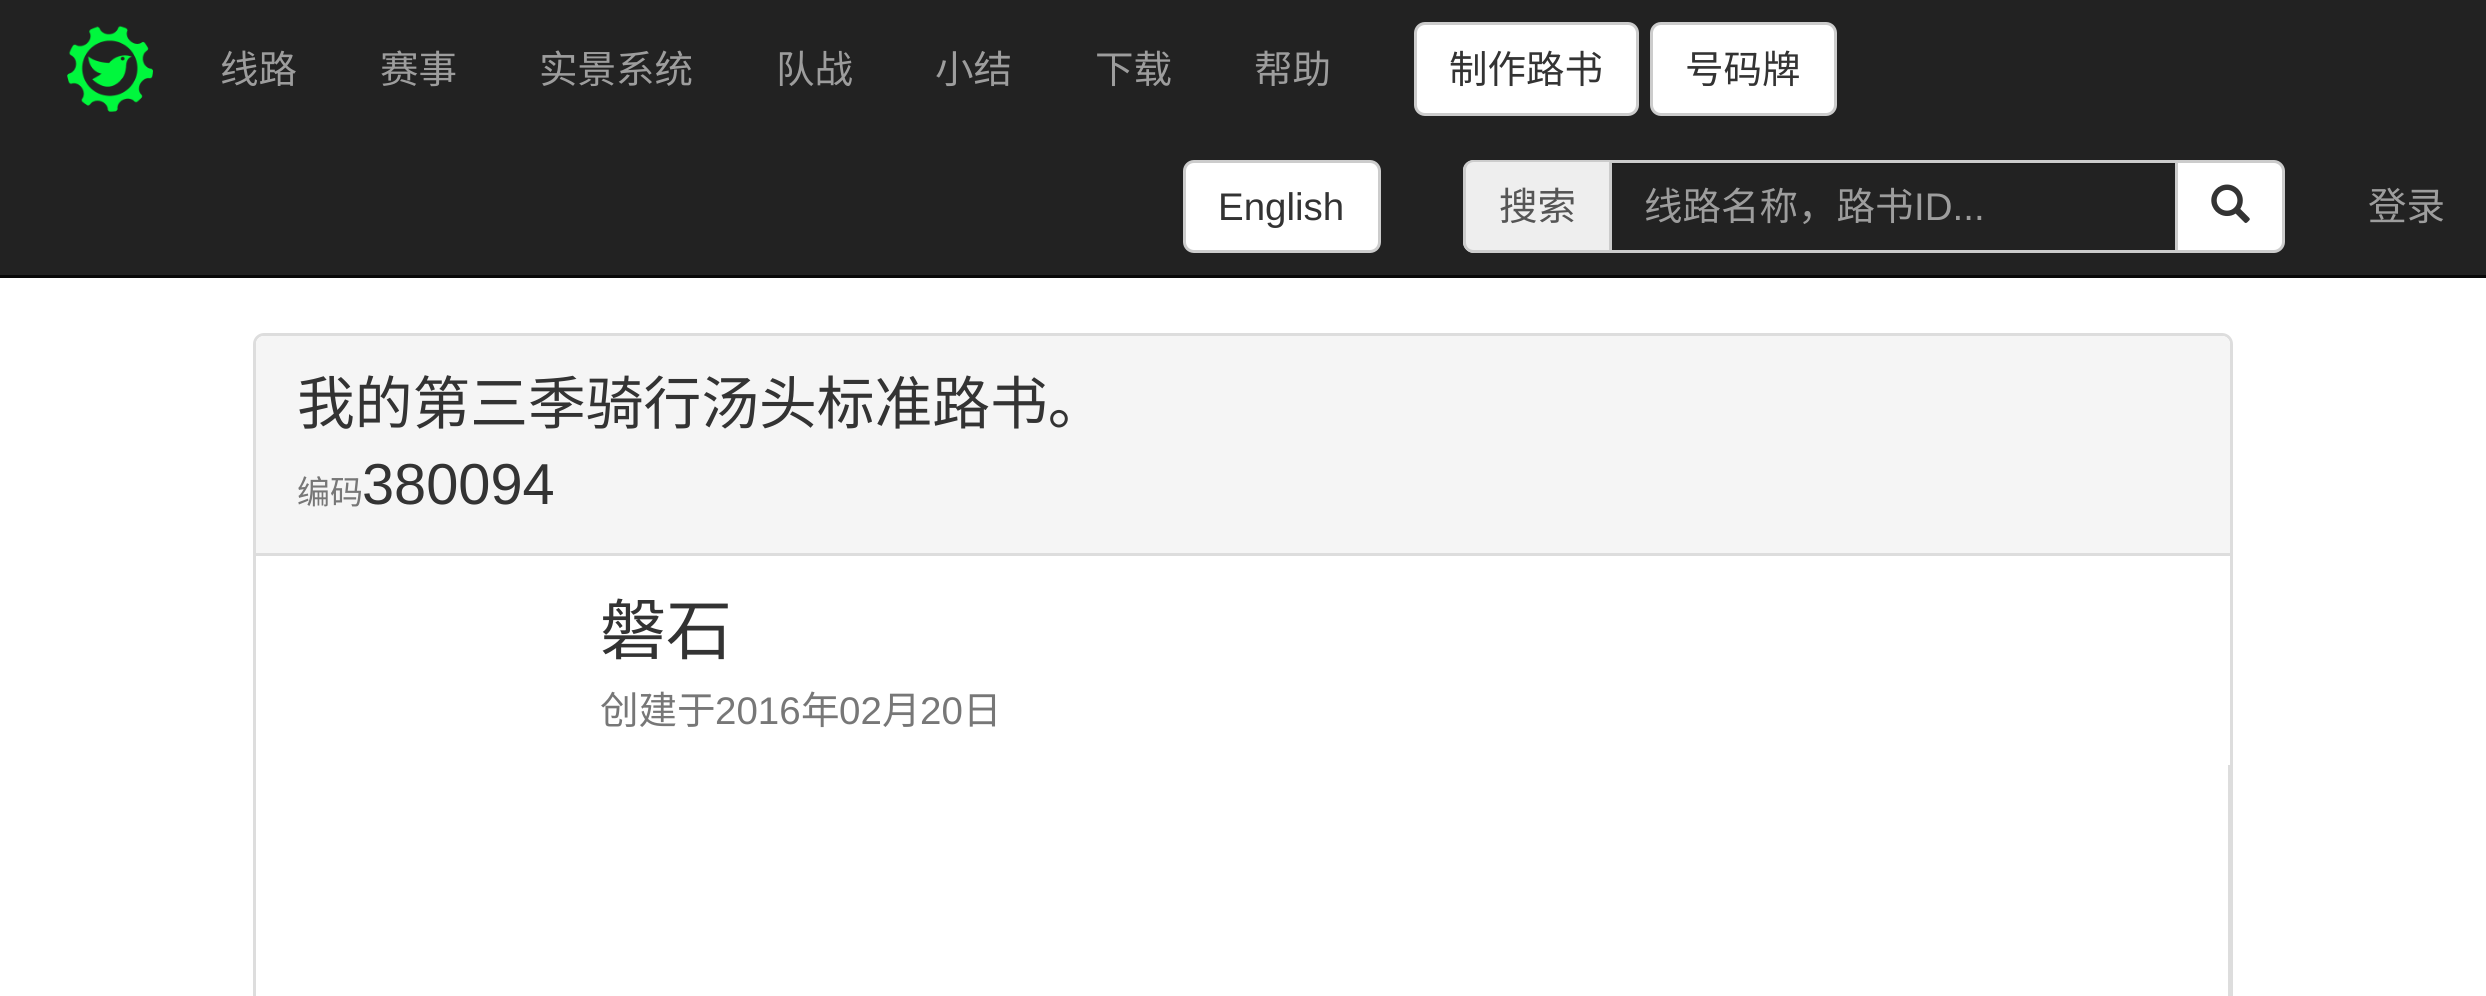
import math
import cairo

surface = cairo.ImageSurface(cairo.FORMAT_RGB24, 2486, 996)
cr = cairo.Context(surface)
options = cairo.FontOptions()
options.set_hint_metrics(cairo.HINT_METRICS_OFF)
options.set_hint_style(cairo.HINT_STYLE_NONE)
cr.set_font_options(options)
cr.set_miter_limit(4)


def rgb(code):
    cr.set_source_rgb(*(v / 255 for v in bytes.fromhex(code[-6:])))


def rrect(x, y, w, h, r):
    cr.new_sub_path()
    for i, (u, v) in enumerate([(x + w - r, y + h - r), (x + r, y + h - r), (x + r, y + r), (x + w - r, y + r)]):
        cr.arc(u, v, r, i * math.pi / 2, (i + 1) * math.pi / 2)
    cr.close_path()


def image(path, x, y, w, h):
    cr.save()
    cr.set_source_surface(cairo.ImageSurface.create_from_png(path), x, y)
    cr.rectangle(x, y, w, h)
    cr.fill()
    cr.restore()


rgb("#ffffff")
cr.paint()
rgb("#222222")
cr.rectangle(0, 0, 2486, 275)
cr.fill()
rgb("#080808")
cr.rectangle(0, 275, 2486, 3)
cr.fill()
image("img/1.png", 67, 25, 86, 87)
rgb("#ffffff")
rrect(1415.5, 23.5, 222, 91, 9.5)
cr.fill_preserve()
rgb("#cccccc")
cr.set_line_width(3)
cr.stroke()
rgb("#ffffff")
rrect(1651.5, 23.5, 184, 91, 9.5)
cr.fill_preserve()
rgb("#cccccc")
cr.stroke()
rgb("#ffffff")
rrect(1184.5, 161.5, 195, 90, 9.5)
cr.fill_preserve()
rgb("#cccccc")
cr.stroke()
rgb("#eeeeee")
cr.new_path()
cr.move_to(1474, 160)
cr.line_to(1609, 160)
cr.line_to(1609, 253)
cr.line_to(1474, 253)
cr.curve_to(1468, 253, 1463, 248, 1463, 242)
cr.line_to(1463, 171)
cr.curve_to(1463, 165, 1468, 160, 1474, 160)
cr.close_path()
cr.fill()
rgb("#cccccc")
cr.set_fill_rule(cairo.FILL_RULE_EVEN_ODD)
cr.new_path()
cr.move_to(1474, 160)
cr.line_to(1609, 160)
cr.line_to(1609, 253)
cr.line_to(1474, 253)
cr.curve_to(1468, 253, 1463, 248, 1463, 242)
cr.line_to(1463, 170)
cr.curve_to(1463, 164, 1468, 160, 1474, 160)
cr.close_path()
cr.move_to(1474, 162)
cr.line_to(1609, 162)
cr.line_to(1609, 250)
cr.line_to(1474, 250)
cr.curve_to(1469, 250, 1466, 247, 1466, 242)
cr.line_to(1466, 170)
cr.curve_to(1466, 166, 1469, 162, 1474, 162)
cr.close_path()
cr.fill()
rgb("#1f1f1f")
cr.rectangle(1612, 163, 563, 2)
cr.fill()
cr.rectangle(1610.5, 161.5, 566, 90)
rgb("#cccccc")
cr.stroke()
rgb("#ffffff")
cr.new_path()
cr.move_to(2176.5, 161.5)
cr.line_to(2274, 161.5)
cr.curve_to(2279, 161.5, 2283.5, 166, 2283.5, 171)
cr.line_to(2283.5, 242)
cr.curve_to(2283.5, 247, 2279, 251.5, 2274, 251.5)
cr.line_to(2176.5, 251.5)
cr.close_path()
cr.fill_preserve()
rgb("#cccccc")
cr.stroke()
image("img/2.png", 2211, 184, 39, 39)
rrect(254.5, 334.5, 1977, 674, 9.5)
rgb("#dddddd")
cr.stroke()
rgb("#f5f5f5")
cr.new_path()
cr.move_to(264, 336)
cr.line_to(2222, 336)
cr.curve_to(2226.5, 336, 2230, 339.5, 2230, 344)
cr.line_to(2230, 556)
cr.line_to(256, 556)
cr.line_to(256, 344)
cr.curve_to(256, 339.5, 259.5, 336, 264, 336)
cr.close_path()
cr.fill()
rgb("#dddddd")
cr.rectangle(256, 553, 1974, 3)
cr.fill()
cr.rectangle(2228, 765, 2, 231)
cr.fill()
cr.select_font_face("Noto Sans CJK SC")
cr.set_font_size(38.5)
rgb("#9d9d9d")
for x, y, s in [
    (220, 83, "线路"),
    (380, 83, "赛事"),
    (539, 83, "实景系统"),
    (776, 83, "队战"),
    (935, 83, "小结"),
    (1095, 83, "下载"),
    (1254, 83, "帮助"),
]:
    cr.move_to(x, y)
    cr.show_text(s)
rgb("#333333")
cr.move_to(1449, 83)
cr.show_text("制作路书")
cr.move_to(1685, 83)
cr.show_text("号码牌")
cr.select_font_face("Liberation Sans")
cr.move_to(1218, 220)
cr.show_text("English")
cr.select_font_face("Noto Sans CJK SC")
rgb("#555555")
cr.move_to(1499, 220)
cr.show_text("搜索")
rgb("#9d9d9d")
cr.move_to(1644, 220)
cr.show_text("线路名称，路书")
cr.select_font_face("Liberation Sans")
cr.move_to(1914, 220)
cr.show_text("ID...")
cr.select_font_face("Noto Sans CJK SC")
cr.move_to(2368, 220)
cr.show_text("登录")
cr.set_font_size(57.75)
rgb("#333333")
cr.move_to(297, 424)
cr.show_text("我的第三季骑行汤头标准路书。")
cr.set_font_size(33)
rgb("#777777")
cr.move_to(297, 504)
cr.show_text("编码")
cr.select_font_face("Liberation Sans")
cr.set_font_size(57.75)
rgb("#333333")
cr.move_to(362, 504)
cr.show_text("380094")
cr.select_font_face("Noto Sans CJK SC")
cr.set_font_size(66)
cr.move_to(600, 654)
cr.show_text("磐石")
cr.set_font_size(38.5)
rgb("#777777")
cr.move_to(600, 724)
cr.show_text("创建于")
cr.select_font_face("Liberation Sans")
cr.move_to(715, 724)
cr.show_text("2016")
cr.select_font_face("Noto Sans CJK SC")
cr.move_to(801, 724)
cr.show_text("年")
cr.select_font_face("Liberation Sans")
cr.move_to(839, 724)
cr.show_text("02")
cr.select_font_face("Noto Sans CJK SC")
cr.move_to(882, 724)
cr.show_text("月")
cr.select_font_face("Liberation Sans")
cr.move_to(920, 724)
cr.show_text("20")
cr.select_font_face("Noto Sans CJK SC")
cr.move_to(963, 724)
cr.show_text("日")
surface.write_to_png("page.png")
